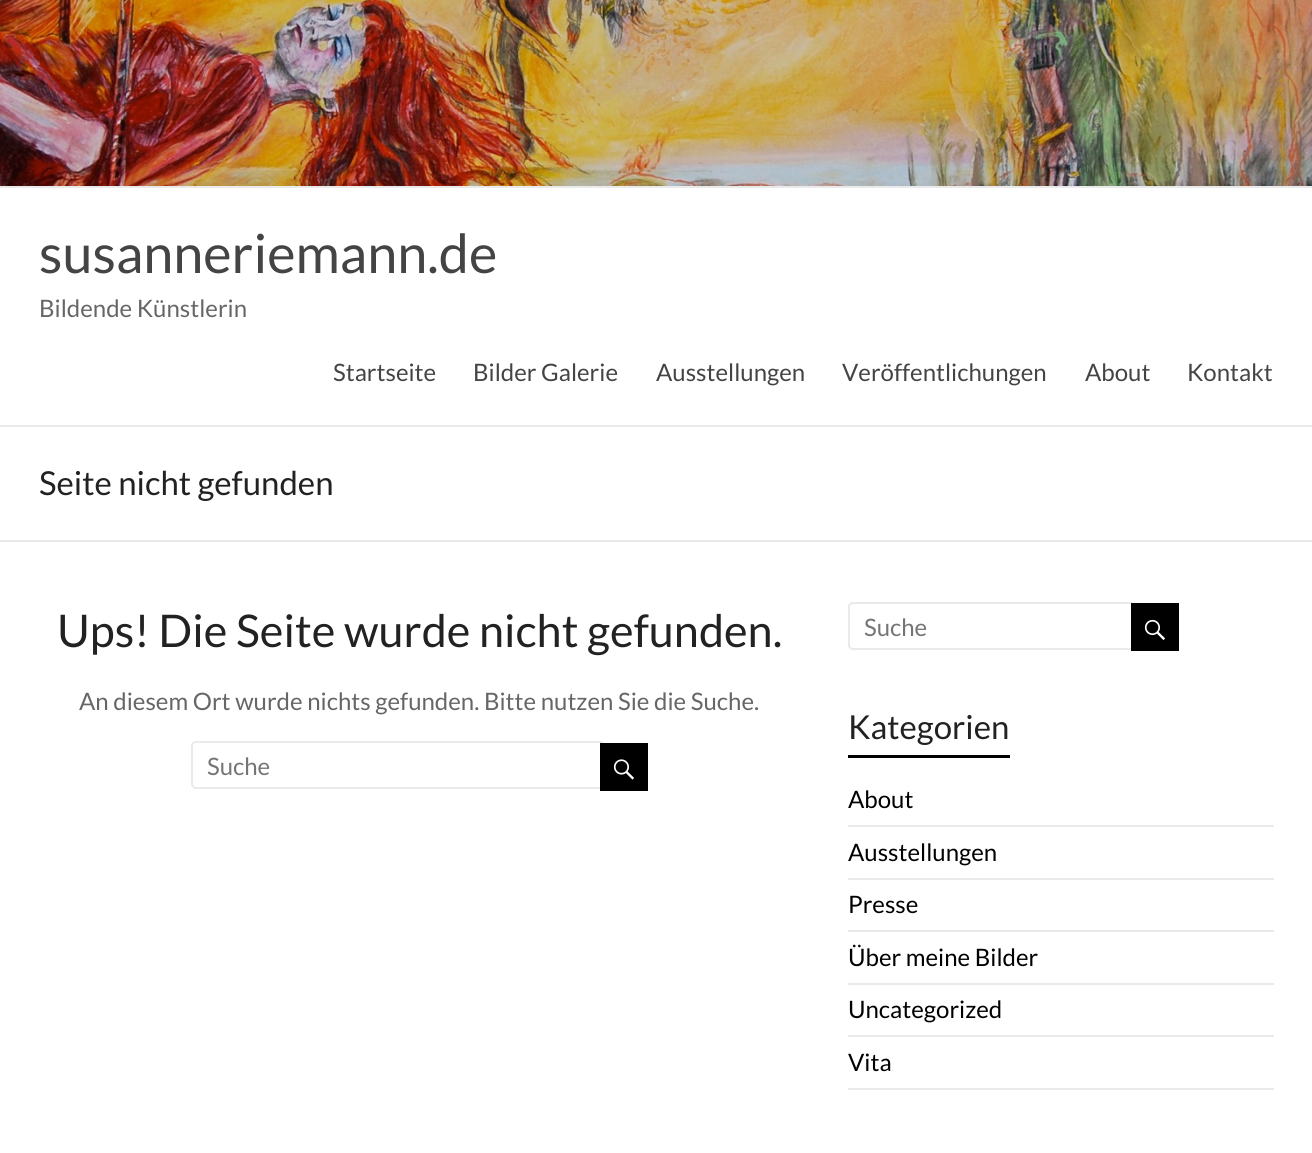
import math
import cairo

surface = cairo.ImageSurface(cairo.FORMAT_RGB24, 1312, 1153)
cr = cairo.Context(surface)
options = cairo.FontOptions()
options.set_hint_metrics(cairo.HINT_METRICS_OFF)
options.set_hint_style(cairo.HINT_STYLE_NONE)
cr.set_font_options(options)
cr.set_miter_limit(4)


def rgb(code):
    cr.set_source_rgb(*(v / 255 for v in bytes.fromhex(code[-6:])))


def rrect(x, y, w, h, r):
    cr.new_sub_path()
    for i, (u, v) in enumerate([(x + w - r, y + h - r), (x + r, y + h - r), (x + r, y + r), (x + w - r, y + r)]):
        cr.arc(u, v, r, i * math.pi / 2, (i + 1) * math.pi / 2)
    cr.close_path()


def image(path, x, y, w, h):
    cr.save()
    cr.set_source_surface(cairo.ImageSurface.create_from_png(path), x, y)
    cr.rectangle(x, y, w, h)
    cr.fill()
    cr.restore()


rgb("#ffffff")
cr.paint()
image("img/1.png", 0, 0, 1312, 186)
for x, y, w, h, color in [
    (0, 186, 1312, 2, "#eaeaea"),
    (0, 425, 1312, 2, "#eaeaea"),
    (0, 540, 1312, 2, "#eaeaea"),
]:
    rgb(color)
    cr.rectangle(x, y, w, h)
    cr.fill()
rrect(192, 742, 412, 46, 4)
cr.stroke()
rgb("#000000")
cr.rectangle(600, 743, 48, 48)
cr.fill()
image("img/2.png", 613, 759, 21, 21)
rrect(849, 603, 286, 46, 4)
rgb("#eaeaea")
cr.stroke()
rgb("#000000")
cr.rectangle(1131, 603, 48, 48)
cr.fill()
image("img/3.png", 1144, 619, 21, 21)
for x, y, w, h, color in [
    (848, 755, 162, 3, "#000000"),
    (848, 825, 426, 2, "#eaeaea"),
    (848, 878, 426, 2, "#eaeaea"),
    (848, 930, 426, 2, "#eaeaea"),
    (848, 983, 426, 2, "#eaeaea"),
    (848, 1035, 426, 2, "#eaeaea"),
    (848, 1088, 426, 2, "#eaeaea"),
]:
    rgb(color)
    cr.rectangle(x, y, w, h)
    cr.fill()
cr.select_font_face("Lato")
cr.set_font_size(54)
rgb("#444444")
cr.move_to(39, 273)
cr.show_text("susanneriemann.de")
cr.set_font_size(24)
rgb("#666666")
cr.move_to(39, 317)
cr.show_text("Bildende Künstlerin")
rgb("#444444")
for x, y, s in [
    (333, 381, "Startseite"),
    (473, 381, "Bilder Galerie"),
    (656, 381, "Ausstellungen"),
    (842, 381, "Veröffentlichungen"),
    (1085, 381, "About"),
    (1187, 381, "Kontakt"),
]:
    cr.move_to(x, y)
    cr.show_text(s)
cr.set_font_size(33)
rgb("#222222")
cr.move_to(39, 495)
cr.show_text("Seite nicht gefunden")
cr.set_font_size(45)
cr.move_to(57, 647)
cr.show_text("Ups! Die Seite wurde nicht gefunden.")
cr.set_font_size(24)
rgb("#666666")
cr.move_to(79, 710)
cr.show_text("An diesem Ort wurde nichts gefunden. Bitte nutzen Sie die Suche.")
rgb("#757575")
cr.move_to(207, 775)
cr.show_text("Suche")
cr.move_to(864, 636)
cr.show_text("Suche")
cr.set_font_size(33)
rgb("#222222")
cr.move_to(848, 739)
cr.show_text("Kategorien")
cr.set_font_size(24)
rgb("#000000")
for x, y, s in [
    (848, 808, "About"),
    (848, 861, "Ausstellungen"),
    (848, 913, "Presse"),
    (848, 966, "Über meine Bilder"),
    (848, 1018, "Uncategorized"),
    (848, 1071, "Vita"),
]:
    cr.move_to(x, y)
    cr.show_text(s)
surface.write_to_png("page.png")
